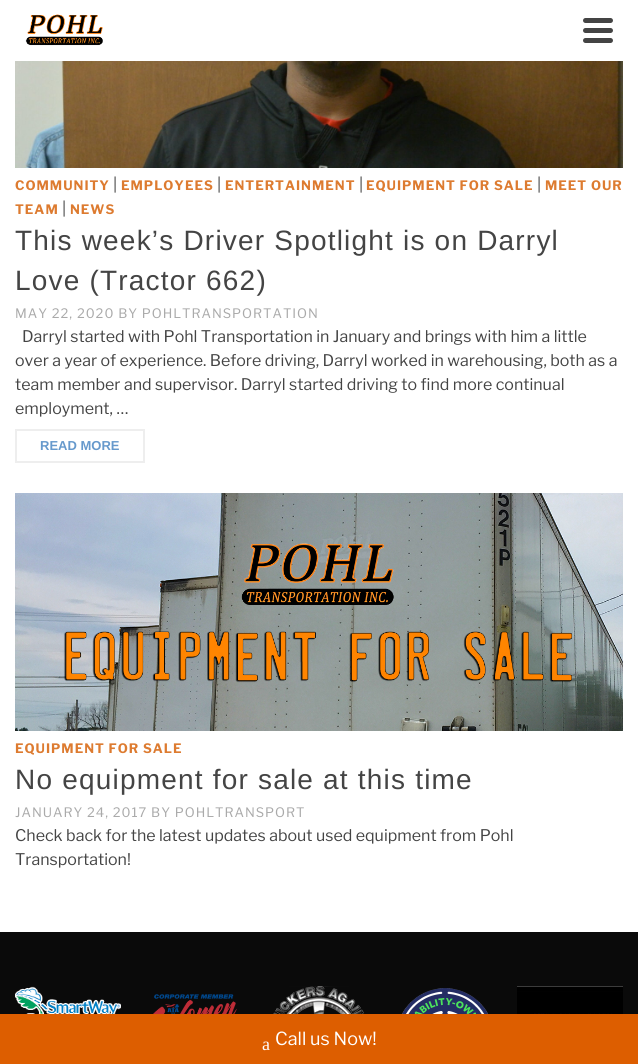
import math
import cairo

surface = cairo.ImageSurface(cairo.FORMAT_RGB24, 638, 1064)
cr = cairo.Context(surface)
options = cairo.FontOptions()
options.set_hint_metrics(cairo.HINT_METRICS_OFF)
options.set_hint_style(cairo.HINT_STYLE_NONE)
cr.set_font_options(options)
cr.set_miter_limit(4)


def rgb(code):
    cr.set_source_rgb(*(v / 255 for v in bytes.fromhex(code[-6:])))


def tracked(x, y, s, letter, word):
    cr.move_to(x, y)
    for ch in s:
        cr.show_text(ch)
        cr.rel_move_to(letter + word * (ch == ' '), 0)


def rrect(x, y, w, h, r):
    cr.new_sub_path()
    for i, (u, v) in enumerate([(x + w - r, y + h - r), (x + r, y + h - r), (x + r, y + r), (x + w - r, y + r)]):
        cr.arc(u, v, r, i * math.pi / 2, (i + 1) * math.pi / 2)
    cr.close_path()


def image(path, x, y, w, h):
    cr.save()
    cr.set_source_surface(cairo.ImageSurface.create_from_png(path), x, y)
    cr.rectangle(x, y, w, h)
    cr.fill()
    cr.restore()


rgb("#ffffff")
cr.paint()
image("img/1.png", 25, 14, 78, 32)
rgb("#444444")
rrect(583, 18, 30, 5, 2.5)
cr.fill()
rrect(583, 28, 30, 5, 2.5)
cr.fill()
rrect(583, 38, 30, 5, 2.5)
cr.fill()
image("img/2.png", 15, 61, 608, 107)
cr.rectangle(16, 430, 128, 32)
rgb("#eeeeee")
cr.stroke()
image("img/3.png", 15, 493, 608, 238)
rgb("#0a0a0a")
cr.rectangle(0, 932, 638, 82)
cr.fill()
image("img/4.png", 15, 986, 106, 28)
image("img/5.png", 153, 994, 84, 20)
image("img/6.png", 273, 986, 91, 28)
image("img/7.png", 402, 988, 86, 26)
image("img/8.png", 517, 986, 106, 28)
cr.rectangle(577, 991, 40, 40)
cr.set_source_rgba(0, 0, 0, 0.4)
cr.stroke()
rgb("#dd5e00")
cr.rectangle(0, 1014, 638, 50)
cr.fill()
cr.select_font_face("Libre Franklin", cairo.FONT_SLANT_NORMAL, cairo.FONT_WEIGHT_BOLD)
cr.set_font_size(13)
rgb("#dd7b30")
tracked(15, 190, "COMMUNITY", 1, 0)
cr.select_font_face("Libre Franklin")
cr.set_font_size(16)
rgb("#444444")
cr.move_to(113, 190)
cr.show_text("|")
cr.select_font_face("Libre Franklin", cairo.FONT_SLANT_NORMAL, cairo.FONT_WEIGHT_BOLD)
cr.set_font_size(13)
rgb("#dd7b30")
tracked(121, 190, "EMPLOYEES", 1, 0)
cr.select_font_face("Libre Franklin")
cr.set_font_size(16)
rgb("#444444")
cr.move_to(217, 190)
cr.show_text("|")
cr.select_font_face("Libre Franklin", cairo.FONT_SLANT_NORMAL, cairo.FONT_WEIGHT_BOLD)
cr.set_font_size(13)
rgb("#dd7b30")
tracked(225, 190, "ENTERTAINMENT", 1, 0)
cr.select_font_face("Libre Franklin")
cr.set_font_size(16)
rgb("#444444")
cr.move_to(359, 190)
cr.show_text("|")
cr.select_font_face("Libre Franklin", cairo.FONT_SLANT_NORMAL, cairo.FONT_WEIGHT_BOLD)
cr.set_font_size(13)
rgb("#dd7b30")
tracked(366, 190, "EQUIPMENT FOR SALE", 1, 0)
cr.select_font_face("Libre Franklin")
cr.set_font_size(16)
rgb("#444444")
cr.move_to(537, 190)
cr.show_text("|")
cr.select_font_face("Libre Franklin", cairo.FONT_SLANT_NORMAL, cairo.FONT_WEIGHT_BOLD)
cr.set_font_size(13)
rgb("#dd7b30")
tracked(545, 190, "MEET OUR", 1, 0)
tracked(15, 214, "TEAM", 1, 0)
cr.select_font_face("Libre Franklin")
cr.set_font_size(16)
rgb("#444444")
cr.move_to(62, 214)
cr.show_text("|")
cr.select_font_face("Libre Franklin", cairo.FONT_SLANT_NORMAL, cairo.FONT_WEIGHT_BOLD)
cr.set_font_size(13)
rgb("#dd7b30")
tracked(70, 214, "NEWS", 1, 0)
cr.select_font_face("Liberation Sans")
cr.set_font_size(28)
rgb("#444444")
tracked(15, 250, "This week’s Driver Spotlight is on Darryl", 1.2, 0)
tracked(15, 290, "Love (Tractor 662)", 1.2, 0)
cr.select_font_face("Libre Franklin")
cr.set_font_size(13)
rgb("#aaaaaa")
tracked(15, 318, "MAY 22, 2020 BY POHLTRANSPORTATION", 1, 0)
cr.set_font_size(16)
rgb("#444444")
for x, y, s in [
    (22, 342, "Darryl started with Pohl Transportation in January and brings with him a little"),
    (15, 366, "over a year of experience. Before driving, Darryl worked in warehousing, both as a"),
    (15, 390, "team member and supervisor. Darryl started driving to find more continual"),
    (15, 414, "employment, …"),
]:
    cr.move_to(x, y)
    cr.show_text(s)
cr.select_font_face("Liberation Sans", cairo.FONT_SLANT_NORMAL, cairo.FONT_WEIGHT_BOLD)
cr.set_font_size(13)
rgb("#6699cc")
cr.move_to(40, 450)
cr.show_text("READ MORE")
cr.select_font_face("Libre Franklin", cairo.FONT_SLANT_NORMAL, cairo.FONT_WEIGHT_BOLD)
rgb("#dd7b30")
tracked(15, 753, "EQUIPMENT FOR SALE", 1, 0)
cr.select_font_face("Liberation Sans")
cr.set_font_size(28)
rgb("#444444")
tracked(15, 789, "No equipment for sale at this time", 1.2, 0)
cr.select_font_face("Libre Franklin")
cr.set_font_size(13)
rgb("#aaaaaa")
tracked(15, 817, "JANUARY 24, 2017 BY POHLTRANSPORT", 1, 0)
cr.set_font_size(16)
rgb("#444444")
cr.move_to(15, 841)
cr.show_text("Check back for the latest updates about used equipment from Pohl")
cr.move_to(15, 865)
cr.show_text("Transportation!")
cr.select_font_face("Liberation Serif")
cr.set_font_size(18)
rgb("#ffffff")
cr.move_to(262, 1050)
cr.show_text("a")
cr.select_font_face("Libre Franklin")
cr.move_to(275, 1045)
cr.show_text("Call us Now!")
surface.write_to_png("page.png")
